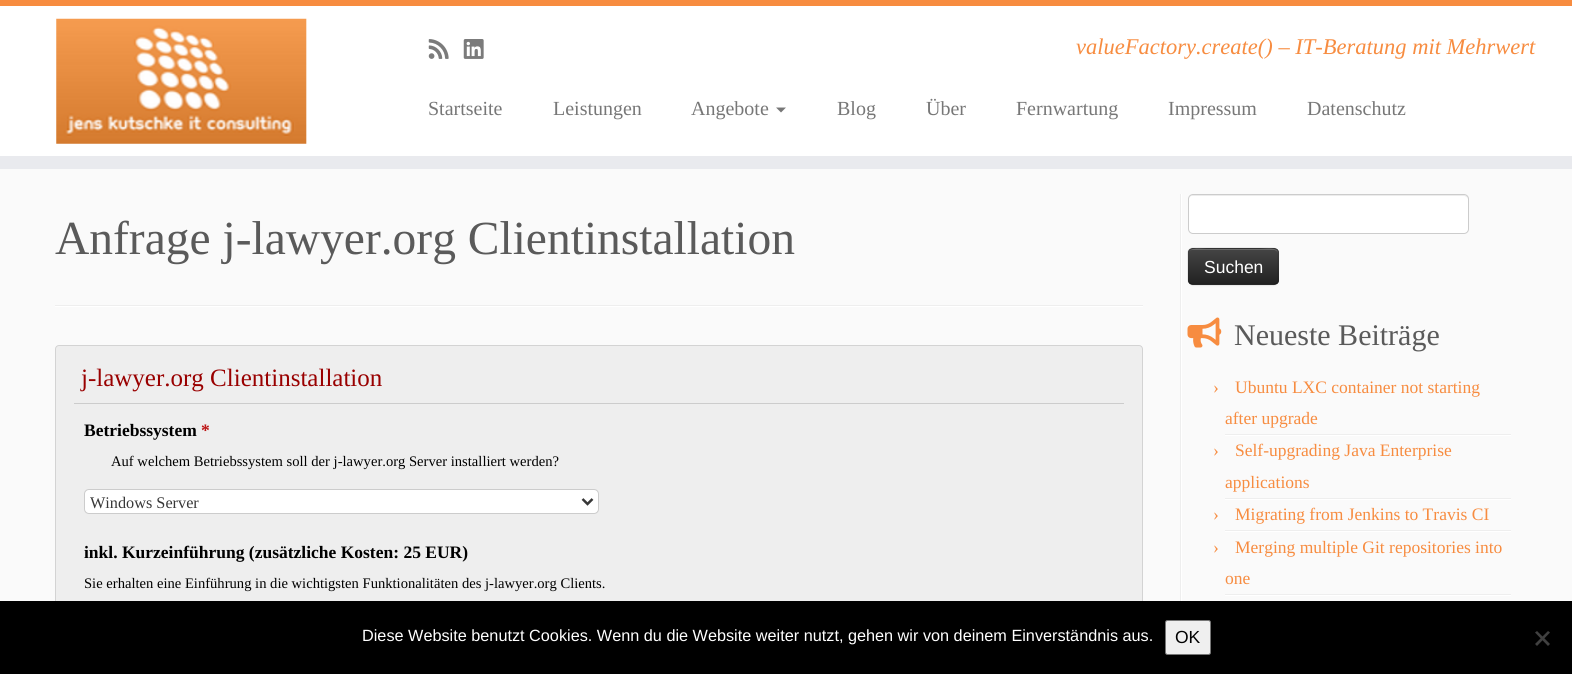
import math
import cairo

surface = cairo.ImageSurface(cairo.FORMAT_RGB24, 1572, 674)
cr = cairo.Context(surface)
options = cairo.FontOptions()
options.set_hint_metrics(cairo.HINT_METRICS_OFF)
options.set_hint_style(cairo.HINT_STYLE_NONE)
cr.set_font_options(options)
cr.set_miter_limit(4)


def rgb(code):
    cr.set_source_rgb(*(v / 255 for v in bytes.fromhex(code[-6:])))


def rrect(x, y, w, h, r):
    cr.new_sub_path()
    for i, (u, v) in enumerate([(x + w - r, y + h - r), (x + r, y + h - r), (x + r, y + r), (x + w - r, y + r)]):
        cr.arc(u, v, r, i * math.pi / 2, (i + 1) * math.pi / 2)
    cr.close_path()


def soft_shadow(x, y, w, h, r, blur, alpha):
    cr.push_group_with_content(cairo.CONTENT_ALPHA)
    cr.set_operator(cairo.OPERATOR_SOURCE)
    for i in range(15, -16, -2):
        e = blur * i / 6
        if min(w, h) + 2 * e > 0:
            cr.set_source_rgba(0, 0, 0, alpha * math.erfc((i - 1) / 8.5) / 2)
            rrect(x - e, y - e, w + 2 * e, h + 2 * e, max(0, min(r + e + blur * .6, min(w, h) / 2 + e)))
            cr.fill()
    cr.mask(cr.pop_group())


def image(path, x, y, w, h):
    cr.save()
    cr.set_source_surface(cairo.ImageSurface.create_from_png(path), x, y)
    cr.rectangle(x, y, w, h)
    cr.fill()
    cr.restore()


rgb("#fafafa")
cr.paint()
for x, y, w, h, color in [
    (0, 6, 1572, 150, "#ffffff"),
    (0, 0, 1572, 6, "#f78c40"),
    (0, 156, 1572, 13, "#e9eaee"),
]:
    rgb(color)
    cr.rectangle(x, y, w, h)
    cr.fill()
image("img/1.png", 56, 18, 251, 126)
image("img/2.png", 428, 39, 21, 20)
image("img/3.png", 463, 39, 21, 20)
rgb("#777777")
cr.new_path()
cr.move_to(776, 107.5)
cr.line_to(786, 107.5)
cr.line_to(781, 112.5)
cr.close_path()
cr.fill()
rgb("#eeeeee")
cr.rectangle(55, 305, 1088, 1)
cr.fill()
rgb("#ffffff")
cr.rectangle(55, 306, 1088, 1)
cr.fill()
rgb("#eeeeee")
rrect(55.5, 345.5, 1087, 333, 3.5)
cr.fill_preserve()
rgb("#d3d3d3")
cr.set_line_width(1)
cr.stroke()
rgb("#cccccc")
cr.rectangle(74, 403, 1050, 1)
cr.fill()
rgb("#ffffff")
rrect(84.5, 489.5, 514, 24, 4.5)
cr.fill_preserve()
rgb("#cccccc")
cr.stroke()
cr.new_path()
cr.move_to(582.5, 499)
cr.line_to(587.5, 504)
cr.line_to(592.5, 499)
rgb("#373737")
cr.set_line_width(2.5)
cr.stroke()
rgb("#eeeeee")
cr.rectangle(1180, 194, 1, 407)
cr.fill()
rgb("#ffffff")
cr.rectangle(1181, 194, 1, 407)
cr.fill()
rrect(1188, 194, 281, 40, 5)
cr.fill()
rgb("#ececec")
cr.new_path()
cr.move_to(1192, 196)
cr.line_to(1464, 196)
cr.curve_to(1466, 196, 1468, 198, 1468, 200)
cr.curve_to(1468, 197, 1467, 195, 1464, 195)
cr.line_to(1193, 195)
cr.curve_to(1190, 195, 1189, 197, 1189, 200)
cr.curve_to(1189, 198, 1190, 196, 1192, 196)
cr.close_path()
cr.fill()
rrect(1188.5, 194.5, 280, 39, 4.5)
rgb("#cccccc")
cr.set_line_width(1)
cr.stroke()
rgb("#000000")
soft_shadow(1188, 249, 91, 37, 5, 1, 0.05)
rgb("#363636")
rrect(1188, 248, 91, 37, 5)
cr.fill()
cr.save()
rrect(1188, 248, 91, 37, 5)
cr.clip()
gradient = cairo.LinearGradient(1233, 249, 1233, 284)
gradient.add_color_stop_rgba(0, 0.267, 0.267, 0.267, 1)
gradient.add_color_stop_rgba(1, 0.133, 0.133, 0.133, 1)
cr.set_source(gradient)
cr.rectangle(1188, 249, 91, 35)
cr.fill()
cr.restore()
cr.set_source_rgba(1, 1, 1, 0.2)
cr.new_path()
cr.move_to(1192, 250)
cr.line_to(1274, 250)
cr.curve_to(1276, 250, 1278, 252, 1278, 254)
cr.curve_to(1278, 246, 1265, 249, 1260, 249)
cr.line_to(1206, 249)
cr.curve_to(1202, 249, 1189, 246, 1189, 254)
cr.curve_to(1189, 252, 1190, 250, 1192, 250)
cr.close_path()
cr.fill()
cr.new_path()
cr.move_to(1277, 283)
cr.line_to(1274, 284.5)
cr.line_to(1192, 284.5)
cr.line_to(1189.5, 283)
cr.set_source_rgba(0, 0, 0, 0.25)
cr.set_line_width(1.2)
cr.stroke()
cr.new_path()
cr.move_to(1189.5, 283)
cr.curve_to(1187.5, 281, 1188, 278, 1188, 275.5)
cr.line_to(1188, 266)
cr.curve_to(1188, 246, 1185, 248, 1206, 248)
cr.line_to(1260, 248)
cr.curve_to(1281, 248, 1278, 246, 1278, 266)
cr.line_to(1278, 275.5)
cr.curve_to(1278, 278, 1279, 281, 1277, 283)
cr.set_source_rgba(0, 0, 0, 0.1)
cr.stroke()
image("img/4.png", 1187, 317, 35, 31)
for x, y, w, h, color in [
    (1225, 434, 286, 1, "#eeeeee"),
    (1225, 435, 286, 1, "#ffffff"),
    (1225, 498, 286, 1, "#eeeeee"),
    (1225, 499, 286, 1, "#ffffff"),
    (1225, 530, 286, 1, "#eeeeee"),
    (1225, 531, 286, 1, "#ffffff"),
    (1225, 594, 286, 1, "#eeeeee"),
    (1225, 595, 286, 1, "#ffffff"),
    (0, 601, 1572, 73, "#000000"),
]:
    rgb(color)
    cr.rectangle(x, y, w, h)
    cr.fill()
rgb("#efefef")
rrect(1165.5, 620.5, 45, 34, 2)
cr.fill_preserve()
rgb("#767676")
cr.set_line_width(1)
cr.stroke()
rgb("#404040")
cr.new_path()
cr.move_to(1548, 631)
cr.line_to(1550, 632.5)
cr.line_to(1537, 646)
cr.line_to(1535, 644)
cr.close_path()
cr.fill()
cr.new_path()
cr.move_to(1535, 632.5)
cr.line_to(1537, 631)
cr.line_to(1550, 644)
cr.line_to(1548, 646)
cr.close_path()
cr.fill()
cr.select_font_face("Liberation Serif", cairo.FONT_SLANT_ITALIC)
cr.set_font_size(22.5)
rgb("#f78c40")
cr.move_to(1076, 54)
cr.show_text("valueFactory.create() – IT-Beratung mit Mehrwert")
cr.select_font_face("Liberation Serif")
cr.set_font_size(20)
rgb("#777777")
for x, y, s in [
    (428, 115, "Startseite"),
    (553, 115, "Leistungen"),
    (691, 115, "Angebote"),
    (837, 115, "Blog"),
    (926, 115, "Über"),
    (1016, 115, "Fernwartung"),
    (1168, 115, "Impressum"),
    (1307, 115, "Datenschutz"),
]:
    cr.move_to(x, y)
    cr.show_text(s)
cr.set_font_size(47.5)
rgb("#5a5a5a")
cr.move_to(55, 254)
cr.show_text("Anfrage j-lawyer.org Clientinstallation")
cr.set_font_size(25)
rgb("#990000")
cr.move_to(81, 386)
cr.show_text("j-lawyer.org Clientinstallation")
cr.select_font_face("Liberation Serif", cairo.FONT_SLANT_NORMAL, cairo.FONT_WEIGHT_BOLD)
cr.set_font_size(17.5)
rgb("#000000")
cr.move_to(84, 436)
cr.show_text("Betriebssystem")
rgb("#bc1212")
cr.move_to(201, 436)
cr.show_text("*")
cr.select_font_face("Liberation Serif")
cr.set_font_size(14.6)
rgb("#000000")
cr.move_to(111, 466)
cr.show_text("Auf welchem Betriebssystem soll der j-lawyer.org Server installiert werden?")
cr.set_font_size(16.25)
rgb("#373737")
cr.move_to(90, 508)
cr.show_text("Windows Server")
cr.select_font_face("Liberation Serif", cairo.FONT_SLANT_NORMAL, cairo.FONT_WEIGHT_BOLD)
cr.set_font_size(17.5)
rgb("#000000")
cr.move_to(84, 558)
cr.show_text("inkl. Kurzeinführung (zusätzliche Kosten: 25 EUR)")
cr.select_font_face("Liberation Serif")
cr.set_font_size(14.6)
cr.move_to(84, 588)
cr.show_text("Sie erhalten eine Einführung in die wichtigsten Funktionalitäten des j-lawyer.org Clients.")
cr.select_font_face("Liberation Sans")
cr.set_font_size(17.5)
rgb("#ffffff")
cr.move_to(1204, 273)
cr.show_text("Suchen")
cr.select_font_face("Liberation Serif")
cr.set_font_size(30)
rgb("#5a5a5a")
cr.move_to(1234, 345)
cr.show_text("Neueste Beiträge")
cr.set_font_size(17.5)
rgb("#f78c40")
for x, y, s in [
    (1213, 393, "›"),
    (1235, 393, "Ubuntu LXC container not starting"),
    (1225, 424, "after upgrade"),
    (1213, 456, "›"),
    (1235, 456, "Self-upgrading Java Enterprise"),
    (1225, 488, "applications"),
    (1213, 520, "›"),
    (1235, 520, "Migrating from Jenkins to Travis CI"),
    (1213, 553, "›"),
    (1235, 553, "Merging multiple Git repositories into"),
    (1225, 584, "one"),
]:
    cr.move_to(x, y)
    cr.show_text(s)
cr.select_font_face("Liberation Sans")
cr.set_font_size(16.25)
rgb("#ffffff")
cr.move_to(362, 641)
cr.show_text("Diese Website benutzt Cookies. Wenn du die Website weiter nutzt, gehen wir von deinem Einverständnis aus.")
cr.set_font_size(17.5)
rgb("#000000")
cr.move_to(1175, 643)
cr.show_text("OK")
surface.write_to_png("page.png")
